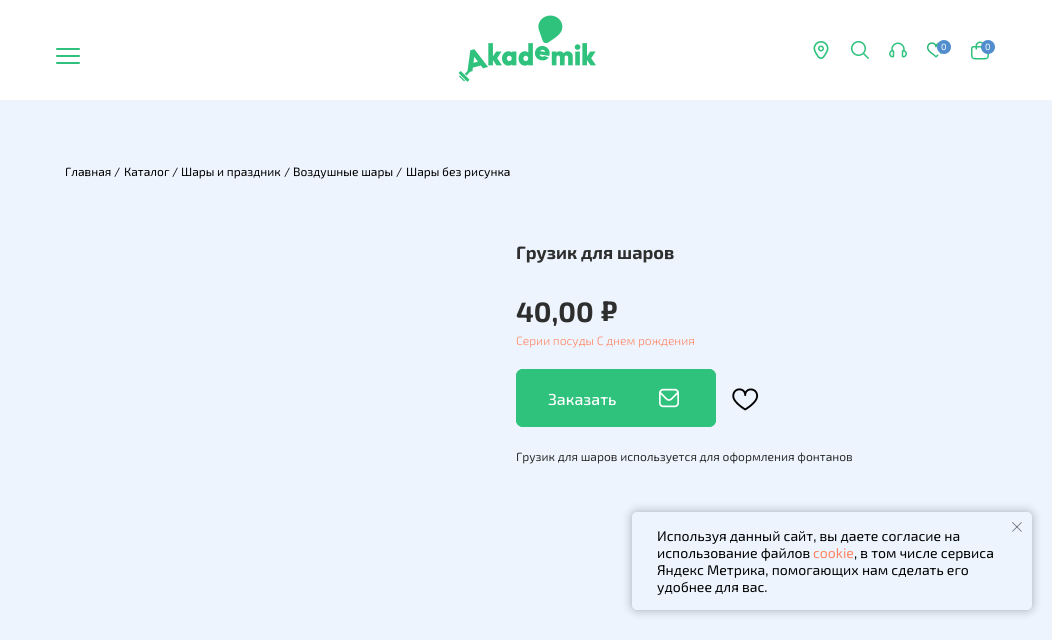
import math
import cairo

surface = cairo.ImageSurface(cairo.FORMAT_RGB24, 1052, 640)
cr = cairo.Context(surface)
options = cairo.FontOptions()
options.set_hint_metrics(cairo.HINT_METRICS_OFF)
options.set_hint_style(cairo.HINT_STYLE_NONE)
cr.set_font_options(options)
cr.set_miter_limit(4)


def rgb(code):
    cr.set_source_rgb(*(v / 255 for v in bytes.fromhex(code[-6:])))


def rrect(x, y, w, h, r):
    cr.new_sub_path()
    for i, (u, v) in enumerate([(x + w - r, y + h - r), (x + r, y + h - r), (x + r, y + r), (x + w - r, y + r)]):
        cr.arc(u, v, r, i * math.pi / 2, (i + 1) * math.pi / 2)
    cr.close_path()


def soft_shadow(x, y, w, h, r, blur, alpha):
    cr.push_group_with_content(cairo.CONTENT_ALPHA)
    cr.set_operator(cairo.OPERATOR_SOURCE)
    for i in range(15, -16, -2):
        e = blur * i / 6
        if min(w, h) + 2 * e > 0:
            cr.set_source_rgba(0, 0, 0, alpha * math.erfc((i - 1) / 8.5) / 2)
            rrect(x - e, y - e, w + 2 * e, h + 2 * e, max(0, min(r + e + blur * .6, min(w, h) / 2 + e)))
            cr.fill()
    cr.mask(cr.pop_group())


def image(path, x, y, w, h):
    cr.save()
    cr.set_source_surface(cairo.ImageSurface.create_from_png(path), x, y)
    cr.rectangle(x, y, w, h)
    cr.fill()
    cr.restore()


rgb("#edf4fe")
cr.paint()
rgb("#ffffff")
cr.rectangle(0, 0, 1052, 100)
cr.fill()
image("img/1.png", 458, 15, 138, 67)
image("img/2.png", 813, 41, 16, 18)
image("img/3.png", 851, 41, 18, 18)
image("img/5.png", 927, 42, 15, 16)
rgb("#528ece")
cr.arc(944, 47, 7, 0, 2 * math.pi)
cr.fill()
image("img/6.png", 971, 41, 18, 19)
cr.arc(988, 47, 7, 0, 2 * math.pi)
cr.fill()
image("img/4.png", 889, 42, 18, 16)
image("img/7.png", 56, 48, 24, 16)
rgb("#2fc27d")
rrect(516, 369, 200, 58, 7)
cr.fill()
image("img/8.png", 659, 388, 20, 20)
rrect(517, 370, 198, 56, 6)
cr.stroke()
image("img/9.png", 732, 388, 27, 23)
rgb("#000000")
soft_shadow(632, 512, 400, 98, 5, 5, 0.3)
rgb("#edf4fe")
rrect(632, 512, 400, 98, 5)
cr.fill()
image("img/10.png", 1012, 522, 10, 10)
cr.select_font_face("Exo 2")
cr.set_font_size(9)
rgb("#ffffff")
cr.move_to(941, 50)
cr.show_text("0")
cr.move_to(985, 50)
cr.show_text("0")
cr.set_font_size(12)
rgb("#000000")
for x, y, s in [
    (65, 176, "Главная"),
    (114, 176, "/"),
    (124, 176, "Каталог"),
    (172, 176, "/"),
    (181, 176, "Шары и праздник"),
    (284, 176, "/"),
    (293, 176, "Воздушные шары"),
    (396, 176, "/"),
    (406, 176, "Шары без рисунка"),
]:
    cr.move_to(x, y)
    cr.show_text(s)
cr.select_font_face("Exo 2", cairo.FONT_SLANT_NORMAL, cairo.FONT_WEIGHT_BOLD)
cr.set_font_size(18)
rgb("#2e2e2e")
cr.move_to(516, 259)
cr.show_text("Грузик для шаров")
cr.set_font_size(28)
cr.move_to(516, 322)
cr.show_text("40,00")
cr.move_to(601, 321)
cr.show_text("₽")
cr.select_font_face("Exo 2 Light")
cr.set_font_size(12)
rgb("#ff8562")
cr.move_to(516, 345)
cr.show_text("Серии посуды С днем рождения")
cr.select_font_face("Exo 2 Medium")
cr.set_font_size(16)
rgb("#ffffff")
cr.move_to(548, 405)
cr.show_text("Заказать")
cr.select_font_face("Exo 2")
cr.set_font_size(12)
rgb("#2e2e2e")
cr.move_to(516, 461)
cr.show_text("Грузик для шаров используется для оформления фонтанов")
cr.set_font_size(14)
rgb("#000000")
cr.move_to(657, 541)
cr.show_text("Используя данный сайт, вы даете согласие на")
cr.move_to(657, 558)
cr.show_text("использование файлов")
rgb("#ff8562")
cr.move_to(813, 558)
cr.show_text("cookie")
rgb("#000000")
for x, y, s in [
    (854, 558, ", в том числе сервиса"),
    (657, 575, "Яндекс Метрика, помогающих нам сделать его"),
    (657, 592, "удобнее для вас."),
]:
    cr.move_to(x, y)
    cr.show_text(s)
surface.write_to_png("page.png")
